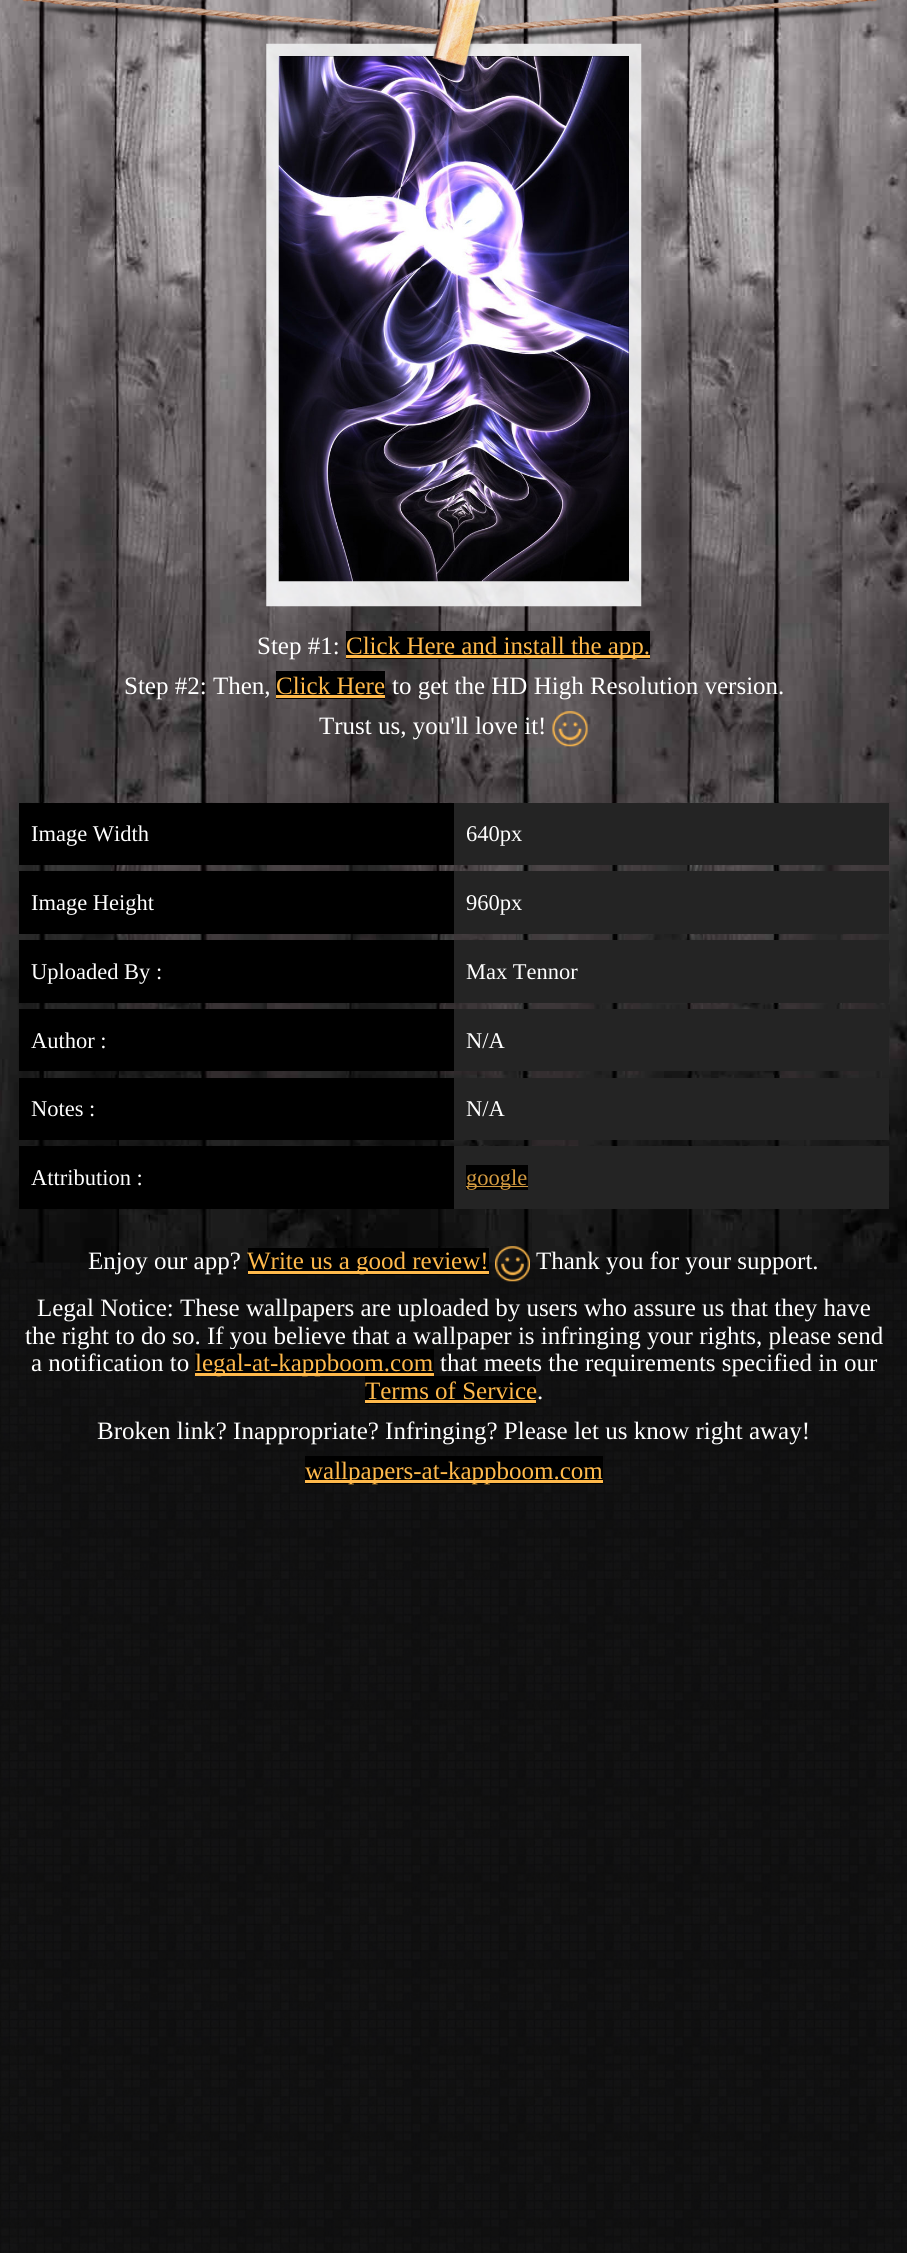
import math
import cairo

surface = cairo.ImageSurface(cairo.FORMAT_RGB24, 907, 2253)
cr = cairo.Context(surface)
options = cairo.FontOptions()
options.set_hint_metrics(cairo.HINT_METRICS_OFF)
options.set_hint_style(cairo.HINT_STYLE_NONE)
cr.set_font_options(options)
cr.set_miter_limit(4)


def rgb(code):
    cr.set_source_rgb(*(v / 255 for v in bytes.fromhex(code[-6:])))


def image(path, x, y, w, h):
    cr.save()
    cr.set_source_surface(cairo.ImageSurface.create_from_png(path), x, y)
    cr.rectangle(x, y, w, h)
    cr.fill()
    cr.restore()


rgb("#ffffff")
cr.paint()
image("img/1.png", 0, 1262, 907, 991)
image("img/2.png", 0, 0, 907, 1263)
image("img/4.png", 266, 43, 376, 564)
rgb("#000000")
cr.rectangle(279, 56, 350, 525)
cr.fill()
image("img/5.png", 278, 56, 351, 526)
image("img/3.png", 22, 0, 861, 71)
for x, y, w, h, color in [
    (346, 631, 304, 28, "#000000"),
    (346, 655, 304, 3, "#ffb94b"),
    (276, 671, 109, 28, "#000000"),
    (276, 695, 109, 3, "#ffb94b"),
]:
    rgb(color)
    cr.rectangle(x, y, w, h)
    cr.fill()
image("img/6.png", 552, 711, 36, 36)
for x, y, w, h, color in [
    (454, 803, 435, 62, "#242424"),
    (19, 803, 435, 62, "#000000"),
    (454, 871, 435, 63, "#242424"),
    (19, 871, 435, 63, "#000000"),
    (454, 940, 435, 63, "#242424"),
    (19, 940, 435, 63, "#000000"),
    (454, 1009, 435, 62, "#242424"),
    (19, 1009, 435, 62, "#000000"),
    (454, 1078, 435, 62, "#242424"),
    (19, 1078, 435, 62, "#000000"),
    (454, 1146, 435, 63, "#242424"),
    (19, 1146, 435, 63, "#000000"),
    (466, 1165, 62, 25, "#000000"),
    (466, 1186, 62, 1, "#d39a40"),
    (248, 1248, 241, 27, "#000000"),
    (248, 1271, 241, 3, "#ffb94b"),
]:
    rgb(color)
    cr.rectangle(x, y, w, h)
    cr.fill()
image("img/7.png", 495, 1246, 35, 36)
for x, y, w, h, color in [
    (195, 1373, 239, 3, "#ffb94b"),
    (305, 1456, 298, 28, "#000000"),
    (305, 1480, 298, 3, "#ffb94b"),
]:
    rgb(color)
    cr.rectangle(x, y, w, h)
    cr.fill()
cr.select_font_face("Liberation Serif")
cr.set_font_size(25)
rgb("#ffffff")
cr.move_to(257, 654)
cr.show_text("Step #1:")
rgb("#ffb94b")
cr.move_to(346, 654)
cr.show_text("Click Here and install the app.")
rgb("#ffffff")
cr.move_to(124, 694)
cr.show_text("Step #2: Then,")
rgb("#ffb94b")
cr.move_to(276, 694)
cr.show_text("Click Here")
rgb("#ffffff")
cr.move_to(392, 694)
cr.show_text("to get the HD High Resolution version.")
cr.move_to(319, 734)
cr.show_text("Trust us, you'll love it!")
cr.set_font_size(22.5)
for x, y, s in [
    (31, 841, "Image Width"),
    (466, 841, "640px"),
    (31, 910, "Image Height"),
    (466, 910, "960px"),
    (31, 979, "Uploaded By :"),
    (466, 979, "Max Tennor"),
    (31, 1048, "Author :"),
    (466, 1048, "N/A"),
    (31, 1116, "Notes :"),
    (466, 1116, "N/A"),
    (31, 1185, "Attribution :"),
]:
    cr.move_to(x, y)
    cr.show_text(s)
rgb("#d39a40")
cr.move_to(466, 1185)
cr.show_text("google")
cr.set_font_size(25)
rgb("#ffffff")
cr.move_to(88, 1269)
cr.show_text("Enjoy our app?")
rgb("#ffb94b")
cr.move_to(247, 1269)
cr.show_text("Write us a good review!")
rgb("#ffffff")
for x, y, s in [
    (536, 1269, "Thank you for your support."),
    (37, 1316, "Legal Notice: These wallpapers are uploaded by users who assure us that they have"),
    (25, 1344, "the right to do so. If you believe that a wallpaper is infringing your rights, please send"),
    (31, 1371, "a notification to"),
]:
    cr.move_to(x, y)
    cr.show_text(s)
rgb("#000000")
cr.rectangle(195, 1349, 239, 24)
cr.fill()
rgb("#ffb94b")
cr.move_to(195, 1371)
cr.show_text("legal-at-kappboom.com")
rgb("#ffffff")
cr.move_to(440, 1371)
cr.show_text("that meets the requirements specified in our")
rgb("#000000")
cr.rectangle(365, 1376, 171, 28)
cr.fill()
rgb("#ffb94b")
cr.move_to(365, 1399)
cr.show_text("Terms of Service")
cr.rectangle(365, 1400, 171, 3)
cr.fill()
rgb("#ffffff")
cr.move_to(537, 1399)
cr.show_text(".")
cr.move_to(97, 1439)
cr.show_text("Broken link? Inappropriate? Infringing? Please let us know right away!")
rgb("#ffb94b")
cr.move_to(305, 1479)
cr.show_text("wallpapers-at-kappboom.com")
surface.write_to_png("page.png")
